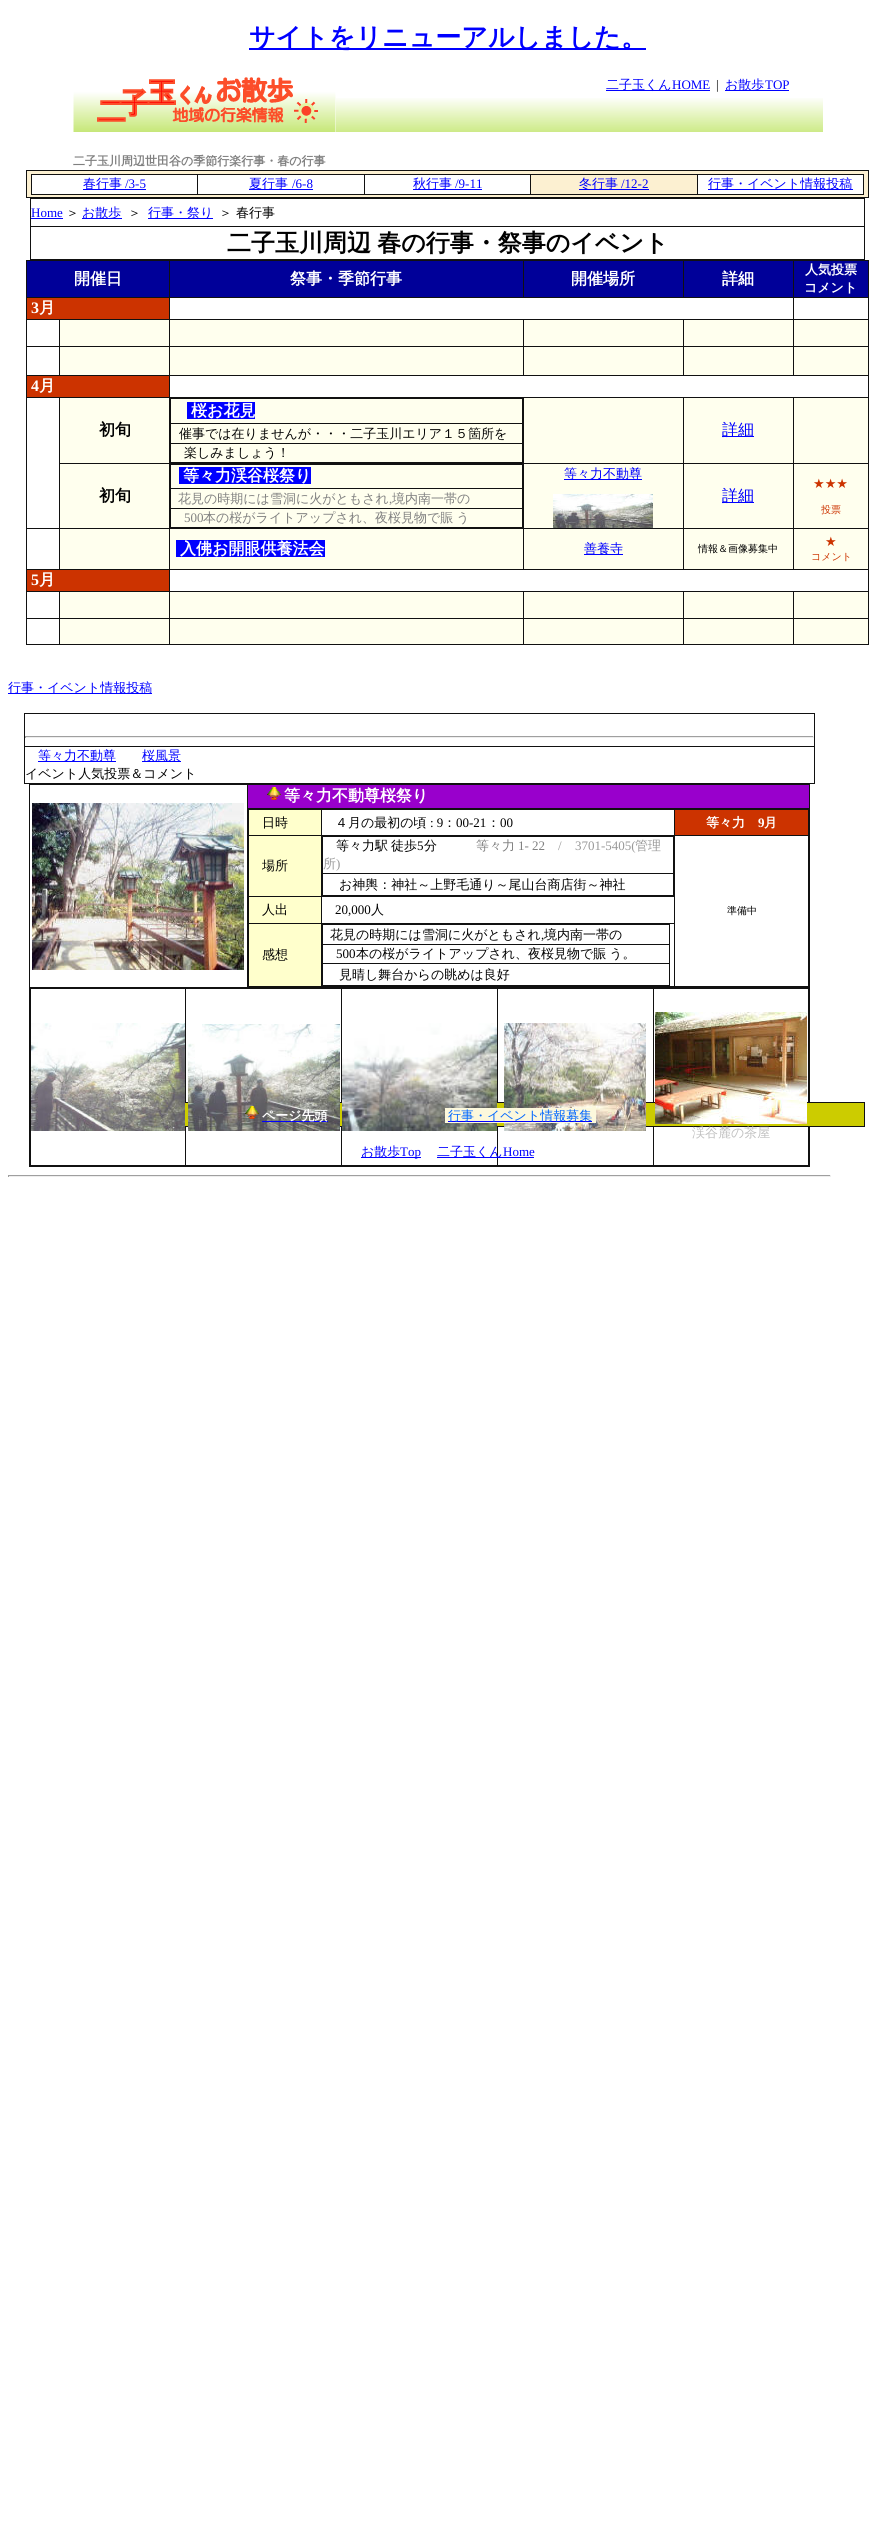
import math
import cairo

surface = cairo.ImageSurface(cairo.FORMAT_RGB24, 895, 2531)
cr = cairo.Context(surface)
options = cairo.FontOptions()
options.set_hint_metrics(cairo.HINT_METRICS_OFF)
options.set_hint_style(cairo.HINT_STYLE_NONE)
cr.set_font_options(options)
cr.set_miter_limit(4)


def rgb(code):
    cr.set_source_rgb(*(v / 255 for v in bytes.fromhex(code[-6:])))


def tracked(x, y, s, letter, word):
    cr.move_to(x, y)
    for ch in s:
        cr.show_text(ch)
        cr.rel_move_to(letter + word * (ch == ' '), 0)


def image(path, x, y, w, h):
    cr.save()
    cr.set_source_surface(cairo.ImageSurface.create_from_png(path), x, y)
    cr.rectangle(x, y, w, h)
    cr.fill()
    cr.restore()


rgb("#ffffff")
cr.paint()
rgb("#0000ff")
cr.rectangle(249, 48, 397, 2)
cr.fill()
image("img/1.png", 336, 98, 237, 34)
image("img/2.png", 73, 77, 263, 55)
image("img/3.png", 573, 98, 250, 34)
for x, y, w, h, color in [
    (606, 90, 104, 1, "#0000ff"),
    (725, 90, 64, 1, "#0000ff"),
    (26, 170, 843, 1, "#111111"),
    (868, 170, 1, 28, "#111111"),
    (26, 197, 843, 1, "#111111"),
    (26, 170, 1, 28, "#111111"),
    (27, 171, 841, 26, "#fcf0d1"),
    (31, 174, 833, 1, "#111111"),
    (863, 174, 1, 21, "#111111"),
    (31, 194, 833, 1, "#111111"),
    (31, 174, 1, 21, "#111111"),
    (32, 175, 165, 19, "#ffffff"),
    (83, 189, 63, 1, "#0000ff"),
    (198, 175, 166, 19, "#ffffff"),
    (197, 174, 1, 21, "#111111"),
    (249, 189, 64, 1, "#0000ff"),
    (365, 175, 165, 19, "#ffffff"),
    (364, 174, 1, 21, "#111111"),
    (413, 189, 69, 1, "#0000ff"),
    (530, 174, 1, 21, "#111111"),
    (579, 189, 70, 1, "#0000ff"),
    (698, 175, 165, 19, "#ffffff"),
    (697, 174, 1, 21, "#111111"),
    (708, 189, 145, 1, "#0000ff"),
    (30, 198, 835, 1, "#111111"),
    (864, 198, 1, 62, "#111111"),
    (30, 259, 835, 1, "#111111"),
    (30, 198, 1, 62, "#111111"),
    (31, 218, 32, 1, "#0000ff"),
    (82, 218, 40, 1, "#0000ff"),
    (148, 218, 65, 1, "#0000ff"),
    (30, 226, 835, 1, "#111111"),
    (26, 260, 843, 1, "#111111"),
    (868, 260, 1, 385, "#111111"),
    (26, 644, 843, 1, "#111111"),
    (26, 260, 1, 385, "#111111"),
    (27, 261, 142, 36, "#000099"),
    (170, 261, 353, 36, "#000099"),
    (793, 297, 76, 1, "#111111"),
    (793, 319, 76, 1, "#111111"),
    (793, 346, 76, 1, "#111111"),
    (169, 375, 700, 1, "#111111"),
    (793, 346, 1, 30, "#111111"),
    (683, 346, 111, 1, "#111111"),
    (793, 319, 1, 28, "#111111"),
    (683, 319, 111, 1, "#111111"),
    (793, 297, 1, 23, "#111111"),
    (169, 297, 625, 1, "#111111"),
    (683, 346, 1, 30, "#111111"),
    (523, 346, 161, 1, "#111111"),
    (683, 319, 1, 28, "#111111"),
    (523, 319, 161, 1, "#111111"),
    (523, 346, 1, 30, "#111111"),
    (169, 346, 355, 1, "#111111"),
    (523, 319, 1, 28, "#111111"),
    (169, 319, 355, 1, "#111111"),
    (793, 397, 76, 1, "#111111"),
    (793, 463, 76, 1, "#111111"),
    (793, 528, 76, 1, "#111111"),
    (169, 569, 700, 1, "#111111"),
    (793, 528, 1, 42, "#111111"),
    (683, 528, 111, 1, "#111111"),
    (793, 463, 1, 66, "#111111"),
    (683, 463, 111, 1, "#111111"),
    (793, 397, 1, 67, "#111111"),
    (683, 397, 111, 1, "#111111"),
    (683, 528, 1, 42, "#111111"),
    (523, 528, 161, 1, "#111111"),
    (683, 463, 1, 66, "#111111"),
    (523, 463, 161, 1, "#111111"),
    (683, 397, 1, 67, "#111111"),
    (523, 397, 161, 1, "#111111"),
    (523, 528, 1, 42, "#111111"),
    (169, 528, 355, 1, "#111111"),
    (523, 463, 1, 66, "#111111"),
    (169, 463, 355, 1, "#111111"),
    (523, 397, 1, 67, "#111111"),
    (169, 397, 355, 1, "#111111"),
    (793, 591, 76, 1, "#111111"),
    (793, 618, 76, 1, "#111111"),
    (793, 618, 1, 27, "#111111"),
    (683, 618, 111, 1, "#111111"),
    (793, 591, 1, 28, "#111111"),
    (683, 591, 111, 1, "#111111"),
    (683, 618, 1, 27, "#111111"),
    (523, 618, 161, 1, "#111111"),
    (683, 591, 1, 28, "#111111"),
    (523, 591, 161, 1, "#111111"),
    (523, 618, 1, 27, "#111111"),
    (169, 618, 355, 1, "#111111"),
    (523, 591, 1, 28, "#111111"),
    (169, 591, 355, 1, "#111111"),
    (169, 618, 1, 27, "#111111"),
    (59, 618, 111, 1, "#111111"),
    (169, 591, 1, 28, "#111111"),
    (59, 591, 111, 1, "#111111"),
    (169, 569, 1, 23, "#111111"),
    (26, 569, 144, 1, "#111111"),
    (169, 528, 1, 42, "#111111"),
    (59, 528, 111, 1, "#111111"),
    (169, 463, 1, 66, "#111111"),
    (59, 463, 111, 1, "#111111"),
    (169, 397, 1, 67, "#111111"),
    (59, 397, 111, 1, "#111111"),
    (169, 375, 1, 23, "#111111"),
    (26, 375, 144, 1, "#111111"),
    (169, 346, 1, 30, "#111111"),
    (59, 346, 111, 1, "#111111"),
    (169, 319, 1, 28, "#111111"),
    (59, 319, 111, 1, "#111111"),
    (169, 297, 1, 23, "#111111"),
    (26, 297, 144, 1, "#111111"),
    (169, 260, 1, 38, "#111111"),
    (524, 261, 159, 36, "#000099"),
    (523, 260, 1, 38, "#111111"),
    (684, 261, 109, 36, "#000099"),
    (683, 260, 1, 38, "#111111"),
    (794, 261, 74, 36, "#000099"),
    (793, 260, 1, 38, "#111111"),
    (27, 298, 142, 21, "#cc3300"),
    (59, 346, 1, 30, "#111111"),
    (26, 346, 34, 1, "#111111"),
    (59, 319, 1, 28, "#111111"),
    (26, 319, 34, 1, "#111111"),
    (60, 320, 109, 26, "#ffffee"),
    (170, 320, 353, 26, "#ffffee"),
    (524, 320, 159, 26, "#ffffee"),
    (684, 320, 109, 26, "#ffffee"),
    (794, 320, 74, 26, "#ffffee"),
    (60, 347, 109, 28, "#ffffee"),
    (170, 347, 353, 28, "#ffffee"),
    (524, 347, 159, 28, "#ffffee"),
    (684, 347, 109, 28, "#ffffee"),
    (794, 347, 74, 28, "#ffffee"),
    (27, 376, 142, 21, "#cc3300"),
    (59, 528, 1, 42, "#111111"),
    (26, 528, 34, 1, "#111111"),
    (59, 463, 1, 66, "#111111"),
    (59, 397, 1, 67, "#111111"),
    (26, 397, 34, 1, "#111111"),
    (60, 398, 109, 65, "#ffffee"),
    (171, 399, 351, 63, "#ffffee"),
    (170, 398, 353, 1, "#111111"),
    (522, 398, 1, 65, "#111111"),
    (170, 462, 353, 1, "#111111"),
    (170, 398, 1, 65, "#111111"),
    (187, 402, 68, 17, "#0000ff"),
    (170, 423, 353, 1, "#111111"),
    (170, 443, 353, 1, "#111111"),
    (524, 398, 159, 65, "#ffffee"),
    (684, 398, 109, 65, "#ffffee"),
    (722, 436, 32, 1, "#0000ff"),
    (794, 398, 74, 65, "#ffffee"),
    (171, 465, 351, 62, "#ffffee"),
    (170, 464, 353, 1, "#111111"),
    (522, 464, 1, 64, "#111111"),
    (170, 527, 353, 1, "#111111"),
    (170, 464, 1, 64, "#111111"),
    (179, 467, 132, 17, "#0000ff"),
    (170, 488, 353, 1, "#111111"),
    (170, 508, 353, 1, "#111111"),
    (524, 464, 159, 64, "#ffffee"),
    (564, 479, 78, 1, "#0000ff"),
]:
    rgb(color)
    cr.rectangle(x, y, w, h)
    cr.fill()
image("img/4.png", 553, 494, 100, 34)
for x, y, w, h, color in [
    (60, 464, 109, 64, "#ffffee"),
    (684, 464, 109, 64, "#ffffee"),
    (722, 502, 32, 1, "#0000ff"),
    (794, 464, 74, 64, "#ffffee"),
    (60, 529, 109, 40, "#ffffee"),
    (170, 529, 353, 40, "#ffffee"),
    (176, 540, 149, 17, "#0000ff"),
    (524, 529, 159, 40, "#ffffee"),
    (584, 554, 39, 1, "#0000ff"),
    (684, 529, 109, 40, "#ffffee"),
    (794, 529, 74, 40, "#ffffee"),
    (27, 570, 142, 21, "#cc3300"),
    (59, 618, 1, 27, "#111111"),
    (26, 618, 34, 1, "#111111"),
    (59, 591, 1, 28, "#111111"),
    (26, 591, 34, 1, "#111111"),
    (60, 592, 109, 26, "#ffffee"),
    (170, 592, 353, 26, "#ffffee"),
    (524, 592, 159, 26, "#ffffee"),
    (684, 592, 109, 26, "#ffffee"),
    (794, 592, 74, 26, "#ffffee"),
    (60, 619, 109, 25, "#ffffee"),
    (170, 619, 353, 25, "#ffffee"),
    (524, 619, 159, 25, "#ffffee"),
    (684, 619, 109, 25, "#ffffee"),
    (794, 619, 74, 25, "#ffffee"),
    (8, 693, 144, 1, "#0000ff"),
    (24, 713, 791, 1, "#111111"),
    (814, 713, 1, 71, "#111111"),
    (24, 783, 791, 1, "#111111"),
    (24, 713, 1, 71, "#111111"),
    (25, 736, 789, 1, "#9f9f9f"),
    (813, 736, 1, 2, "#eeeeee"),
    (25, 737, 789, 1, "#eeeeee"),
    (25, 736, 1, 2, "#9f9f9f"),
    (24, 746, 791, 1, "#111111"),
    (38, 761, 78, 1, "#0000ff"),
    (142, 761, 39, 1, "#0000ff"),
    (29, 784, 781, 1, "#111111"),
    (809, 784, 1, 383, "#111111"),
    (29, 1166, 781, 1, "#111111"),
    (29, 784, 1, 383, "#111111"),
    (248, 785, 561, 23, "#9900cc"),
]:
    rgb(color)
    cr.rectangle(x, y, w, h)
    cr.fill()
image("img/5.png", 267, 786, 14, 14)
image("img/6.png", 32, 803, 212, 167)
for x, y, w, h, color in [
    (247, 808, 563, 1, "#111111"),
    (29, 987, 781, 1, "#111111"),
    (247, 784, 1, 204, "#111111"),
    (248, 809, 561, 1, "#111111"),
    (808, 809, 1, 178, "#111111"),
    (248, 986, 561, 1, "#111111"),
    (248, 809, 1, 178, "#111111"),
    (249, 810, 72, 25, "#ffffcc"),
    (674, 835, 135, 1, "#111111"),
    (321, 896, 354, 1, "#111111"),
    (321, 923, 354, 1, "#111111"),
    (674, 835, 1, 152, "#111111"),
    (321, 835, 354, 1, "#111111"),
    (321, 923, 1, 64, "#111111"),
    (248, 923, 74, 1, "#111111"),
    (321, 896, 1, 28, "#111111"),
    (248, 896, 74, 1, "#111111"),
    (321, 835, 1, 62, "#111111"),
    (248, 835, 74, 1, "#111111"),
    (321, 809, 1, 27, "#111111"),
    (675, 810, 133, 25, "#cc3300"),
    (674, 809, 1, 27, "#111111"),
    (249, 836, 72, 60, "#ffffcc"),
    (322, 836, 352, 1, "#111111"),
    (673, 836, 1, 60, "#111111"),
    (322, 895, 352, 1, "#111111"),
    (322, 836, 1, 60, "#111111"),
    (322, 873, 352, 1, "#111111"),
    (249, 897, 72, 26, "#ffffcc"),
    (249, 924, 72, 62, "#ffffcc"),
    (322, 924, 348, 1, "#111111"),
    (669, 924, 1, 62, "#111111"),
    (322, 985, 348, 1, "#111111"),
    (322, 924, 1, 62, "#111111"),
    (322, 944, 348, 1, "#111111"),
    (322, 963, 348, 1, "#111111"),
    (30, 988, 779, 1, "#111111"),
    (808, 988, 1, 178, "#111111"),
    (30, 1165, 779, 1, "#111111"),
    (30, 988, 1, 178, "#111111"),
]:
    rgb(color)
    cr.rectangle(x, y, w, h)
    cr.fill()
image("img/7.png", 31, 1023, 154, 108)
for x, y, w, h, color in [
    (185, 988, 1, 178, "#111111"),
    (341, 988, 1, 178, "#111111"),
    (497, 988, 1, 178, "#111111"),
    (653, 988, 1, 178, "#111111"),
    (185, 1102, 680, 1, "#111111"),
    (864, 1102, 1, 25, "#111111"),
    (185, 1126, 680, 1, "#111111"),
    (185, 1103, 679, 23, "#cccc00"),
]:
    rgb(color)
    cr.rectangle(x, y, w, h)
    cr.fill()
image("img/8.png", 188, 1024, 152, 107)
image("img/9.png", 342, 1023, 155, 108)
image("img/10.png", 504, 1023, 142, 108)
image("img/11.png", 655, 1012, 152, 112)
for x, y, w, h, color in [
    (8, 1175, 823, 1, "#9f9f9f"),
    (830, 1175, 1, 2, "#eeeeee"),
    (8, 1176, 823, 1, "#eeeeee"),
    (8, 1175, 1, 2, "#9f9f9f"),
]:
    rgb(color)
    cr.rectangle(x, y, w, h)
    cr.fill()
image("img/12.png", 245, 1105, 14, 14)
for x, y, w, h, color in [
    (262, 1121, 66, 1, "#0000ff"),
    (445, 1108, 147, 15, "#fcf8dc"),
    (592, 1106, 4, 17, "#fcf8dc"),
    (448, 1121, 144, 1, "#0000ff"),
    (361, 1157, 60, 1, "#0000ff"),
    (437, 1157, 97, 1, "#0000ff"),
]:
    rgb(color)
    cr.rectangle(x, y, w, h)
    cr.fill()
cr.select_font_face("WenQuanYi Zen Hei", cairo.FONT_SLANT_NORMAL, cairo.FONT_WEIGHT_BOLD)
cr.set_font_size(26)
cr.move_to(249, 46)
cr.show_text("サイトをリニューアルしました。")
cr.select_font_face("WenQuanYi Zen Hei Medium")
cr.set_font_size(13)
cr.move_to(606, 89)
cr.show_text("二子玉くん")
cr.select_font_face("Liberation Serif")
cr.move_to(672, 89)
cr.show_text("HOME")
rgb("#000000")
cr.move_to(716, 89)
cr.show_text("|")
cr.select_font_face("WenQuanYi Zen Hei Medium")
rgb("#0000ff")
cr.move_to(725, 89)
cr.show_text("お散歩")
cr.select_font_face("Liberation Serif")
cr.move_to(765, 89)
cr.show_text("TOP")
cr.select_font_face("WenQuanYi Zen Hei", cairo.FONT_SLANT_NORMAL, cairo.FONT_WEIGHT_BOLD)
cr.set_font_size(12)
rgb("#808080")
cr.move_to(73, 165)
cr.show_text("二子玉川周辺世田谷の季節行楽行事・春の行事")
cr.select_font_face("WenQuanYi Zen Hei Medium")
cr.set_font_size(13)
rgb("#0000ff")
cr.move_to(83, 188)
cr.show_text("春行事")
cr.select_font_face("Liberation Serif")
cr.move_to(125, 188)
cr.show_text("/3-5")
cr.select_font_face("WenQuanYi Zen Hei Medium")
cr.move_to(249, 188)
cr.show_text("夏行事")
cr.select_font_face("Liberation Serif")
cr.move_to(292, 188)
cr.show_text("/6-8")
cr.select_font_face("WenQuanYi Zen Hei Medium")
cr.move_to(413, 188)
cr.show_text("秋行事")
cr.select_font_face("Liberation Serif")
cr.move_to(455, 188)
cr.show_text("/9-11")
cr.select_font_face("WenQuanYi Zen Hei Medium")
cr.move_to(579, 188)
cr.show_text("冬行事")
cr.select_font_face("Liberation Serif")
cr.move_to(621, 188)
cr.show_text("/12-2")
cr.select_font_face("WenQuanYi Zen Hei Medium")
cr.move_to(708, 188)
cr.show_text("行事・イベント情報投稿")
cr.select_font_face("Liberation Serif")
cr.move_to(31, 217)
cr.show_text("Home")
cr.select_font_face("WenQuanYi Zen Hei Medium")
rgb("#000000")
cr.move_to(66, 217)
cr.show_text("＞")
rgb("#0000ff")
cr.move_to(82, 217)
cr.show_text("お散歩")
rgb("#000000")
cr.move_to(128, 217)
cr.show_text("＞")
rgb("#0000ff")
cr.move_to(148, 217)
cr.show_text("行事・祭り")
rgb("#000000")
cr.move_to(219, 217)
cr.show_text("＞")
cr.move_to(236, 217)
cr.show_text("春行事")
cr.select_font_face("WenQuanYi Zen Hei", cairo.FONT_SLANT_NORMAL, cairo.FONT_WEIGHT_BOLD)
cr.set_font_size(24)
tracked(227, 251, "二子玉川周辺 春の行事・祭事のイベント", 0, -1)
cr.set_font_size(16)
rgb("#ffffff")
for x, y, s in [
    (74, 284, "開催日"),
    (290, 284, "祭事・季節行事"),
    (571, 284, "開催場所"),
    (722, 284, "詳細"),
]:
    cr.move_to(x, y)
    cr.show_text(s)
cr.set_font_size(13)
cr.move_to(805, 274)
cr.show_text("人気投票")
cr.move_to(804, 292)
cr.show_text("コメント")
cr.select_font_face("Liberation Serif", cairo.FONT_SLANT_NORMAL, cairo.FONT_WEIGHT_BOLD)
cr.set_font_size(16)
cr.move_to(31, 313)
cr.show_text("3")
cr.select_font_face("WenQuanYi Zen Hei", cairo.FONT_SLANT_NORMAL, cairo.FONT_WEIGHT_BOLD)
cr.move_to(39, 313)
cr.show_text("月")
cr.select_font_face("Liberation Serif", cairo.FONT_SLANT_NORMAL, cairo.FONT_WEIGHT_BOLD)
cr.move_to(31, 391)
cr.show_text("4")
cr.select_font_face("WenQuanYi Zen Hei", cairo.FONT_SLANT_NORMAL, cairo.FONT_WEIGHT_BOLD)
cr.move_to(39, 391)
cr.show_text("月")
rgb("#000000")
cr.move_to(99, 435)
cr.show_text("初旬")
rgb("#ffffff")
cr.move_to(191, 416)
cr.show_text("桜お花見")
cr.select_font_face("WenQuanYi Zen Hei Medium")
cr.set_font_size(13)
rgb("#000000")
cr.move_to(179, 438)
cr.show_text("催事では在りませんが・・・二子玉川エリア１５箇所を")
cr.move_to(184, 457)
cr.show_text("楽しみましょう！")
cr.set_font_size(16)
rgb("#0000ff")
cr.move_to(722, 435)
cr.show_text("詳細")
cr.select_font_face("WenQuanYi Zen Hei", cairo.FONT_SLANT_NORMAL, cairo.FONT_WEIGHT_BOLD)
rgb("#ffffff")
cr.move_to(183, 481)
cr.show_text("等々力渓谷桜祭り")
cr.select_font_face("WenQuanYi Zen Hei Medium")
cr.set_font_size(13)
rgb("#808080")
cr.move_to(178, 503)
cr.show_text("花見の時期には雪洞に火がともされ")
cr.select_font_face("Liberation Serif")
cr.move_to(389, 503)
cr.show_text(",")
cr.select_font_face("WenQuanYi Zen Hei Medium")
cr.move_to(392, 503)
cr.show_text("境内南一帯の")
cr.select_font_face("Liberation Serif")
cr.move_to(184, 522)
cr.show_text("500")
cr.select_font_face("WenQuanYi Zen Hei Medium")
tracked(203, 522, "本の桜がライトアップされ、夜桜見物で賑 う", 0, -1)
rgb("#0000ff")
cr.move_to(564, 478)
cr.show_text("等々力不動尊")
cr.select_font_face("WenQuanYi Zen Hei", cairo.FONT_SLANT_NORMAL, cairo.FONT_WEIGHT_BOLD)
cr.set_font_size(16)
rgb("#000000")
cr.move_to(99, 501)
cr.show_text("初旬")
cr.select_font_face("WenQuanYi Zen Hei Medium")
rgb("#0000ff")
cr.move_to(722, 501)
cr.show_text("詳細")
cr.select_font_face("DejaVu Sans")
cr.set_font_size(13)
rgb("#cc3300")
cr.move_to(813, 488)
cr.show_text("★★★")
cr.select_font_face("WenQuanYi Zen Hei Medium")
cr.set_font_size(10)
cr.move_to(821, 513)
cr.show_text("投票")
cr.select_font_face("WenQuanYi Zen Hei", cairo.FONT_SLANT_NORMAL, cairo.FONT_WEIGHT_BOLD)
cr.set_font_size(16)
rgb("#ffffff")
cr.move_to(180, 554)
cr.show_text("入佛お開眼供養法会")
cr.select_font_face("WenQuanYi Zen Hei Medium")
cr.set_font_size(13)
rgb("#0000ff")
cr.move_to(584, 553)
cr.show_text("善養寺")
cr.set_font_size(10)
rgb("#000000")
cr.move_to(698, 552)
cr.show_text("情報＆画像募集中")
cr.select_font_face("DejaVu Sans")
cr.set_font_size(13)
rgb("#cc3300")
cr.move_to(825, 546)
cr.show_text("★")
cr.select_font_face("WenQuanYi Zen Hei Medium")
cr.set_font_size(10)
cr.move_to(811, 560)
cr.show_text("コメント")
cr.select_font_face("Liberation Serif", cairo.FONT_SLANT_NORMAL, cairo.FONT_WEIGHT_BOLD)
cr.set_font_size(16)
rgb("#ffffff")
cr.move_to(31, 585)
cr.show_text("5")
cr.select_font_face("WenQuanYi Zen Hei", cairo.FONT_SLANT_NORMAL, cairo.FONT_WEIGHT_BOLD)
cr.move_to(39, 585)
cr.show_text("月")
cr.select_font_face("WenQuanYi Zen Hei Medium")
cr.set_font_size(13)
rgb("#0000ff")
for x, y, s in [
    (8, 692, "行事・イベント情報投稿"),
    (38, 760, "等々力不動尊"),
    (142, 760, "桜風景"),
]:
    cr.move_to(x, y)
    cr.show_text(s)
rgb("#000000")
cr.move_to(25, 778)
cr.show_text("イベント人気投票＆コメント")
cr.select_font_face("WenQuanYi Zen Hei", cairo.FONT_SLANT_NORMAL, cairo.FONT_WEIGHT_BOLD)
cr.set_font_size(16)
rgb("#ffffff")
cr.move_to(284, 801)
cr.show_text("等々力不動尊桜祭り")
cr.select_font_face("WenQuanYi Zen Hei Medium")
cr.set_font_size(13)
rgb("#000000")
cr.move_to(262, 827)
cr.show_text("日時")
cr.move_to(335, 827)
cr.show_text("４月の最初の頃")
cr.select_font_face("Liberation Serif")
cr.move_to(430, 827)
cr.show_text(": 9")
cr.select_font_face("WenQuanYi Zen Hei Medium")
cr.move_to(443, 827)
cr.show_text("：")
cr.select_font_face("Liberation Serif")
cr.move_to(456, 827)
cr.show_text("00-21")
cr.select_font_face("WenQuanYi Zen Hei Medium")
cr.move_to(487, 827)
cr.show_text("：")
cr.select_font_face("Liberation Serif")
cr.move_to(500, 827)
cr.show_text("00")
cr.select_font_face("WenQuanYi Zen Hei", cairo.FONT_SLANT_NORMAL, cairo.FONT_WEIGHT_BOLD)
rgb("#ffffff")
cr.move_to(706, 827)
cr.show_text("等々力")
cr.select_font_face("Liberation Serif", cairo.FONT_SLANT_NORMAL, cairo.FONT_WEIGHT_BOLD)
cr.move_to(758, 827)
cr.show_text("9")
cr.select_font_face("WenQuanYi Zen Hei", cairo.FONT_SLANT_NORMAL, cairo.FONT_WEIGHT_BOLD)
cr.move_to(764, 827)
cr.show_text("月")
cr.select_font_face("WenQuanYi Zen Hei Medium")
rgb("#000000")
cr.move_to(262, 870)
cr.show_text("場所")
tracked(336, 850, "等々力駅 徒歩", 0, -1)
cr.select_font_face("Liberation Serif")
cr.move_to(417, 850)
cr.show_text("5")
cr.select_font_face("WenQuanYi Zen Hei Medium")
cr.move_to(424, 850)
cr.show_text("分")
rgb("#808080")
cr.move_to(476, 850)
cr.show_text("等々力")
cr.select_font_face("Liberation Serif")
cr.move_to(518, 850)
cr.show_text("1- 22")
rgb("#999999")
cr.move_to(558, 850)
cr.show_text("/")
cr.move_to(575, 850)
cr.show_text("3701-5405(")
cr.select_font_face("WenQuanYi Zen Hei Medium")
cr.move_to(635, 850)
cr.show_text("管理")
cr.move_to(323, 868)
cr.show_text("所")
cr.select_font_face("Liberation Serif")
cr.move_to(336, 868)
cr.show_text(")")
cr.select_font_face("WenQuanYi Zen Hei Medium")
rgb("#000000")
cr.move_to(339, 889)
cr.show_text("お神輿：神社～上野毛通り～尾山台商店街～神社")
cr.set_font_size(10)
cr.move_to(727, 914)
cr.show_text("準備中")
cr.set_font_size(13)
cr.move_to(262, 914)
cr.show_text("人出")
cr.select_font_face("Liberation Serif")
cr.move_to(335, 914)
cr.show_text("20,000")
cr.select_font_face("WenQuanYi Zen Hei Medium")
for x, y, s in [
    (371, 914, "人"),
    (262, 959, "感想"),
    (330, 939, "花見の時期には雪洞に火がともされ"),
]:
    cr.move_to(x, y)
    cr.show_text(s)
cr.select_font_face("Liberation Serif")
cr.move_to(541, 939)
cr.show_text(",")
cr.select_font_face("WenQuanYi Zen Hei Medium")
cr.move_to(544, 939)
cr.show_text("境内南一帯の")
cr.select_font_face("Liberation Serif")
cr.move_to(336, 958)
cr.show_text("500")
cr.select_font_face("WenQuanYi Zen Hei Medium")
tracked(356, 958, "本の桜がライトアップされ、夜桜見物で賑 う。", 0, -1)
cr.move_to(339, 979)
cr.show_text("見晴し舞台からの眺めは良好")
rgb("#c0c0c0")
cr.move_to(692, 1137)
cr.show_text("渓谷麓の茶屋")
cr.select_font_face("WenQuanYi Zen Hei", cairo.FONT_SLANT_NORMAL, cairo.FONT_WEIGHT_BOLD)
rgb("#ffffff")
cr.move_to(262, 1120)
cr.show_text("ページ先頭")
cr.select_font_face("WenQuanYi Zen Hei Medium")
rgb("#0066ff")
cr.move_to(448, 1120)
cr.show_text("行事・イベント情報募集")
rgb("#0000ff")
cr.move_to(361, 1156)
cr.show_text("お散歩")
cr.select_font_face("Liberation Serif")
cr.move_to(400, 1156)
cr.show_text("Top")
cr.select_font_face("WenQuanYi Zen Hei Medium")
cr.move_to(437, 1156)
cr.show_text("二子玉くん")
cr.select_font_face("Liberation Serif")
cr.move_to(503, 1156)
cr.show_text("Home")
surface.write_to_png("page.png")
